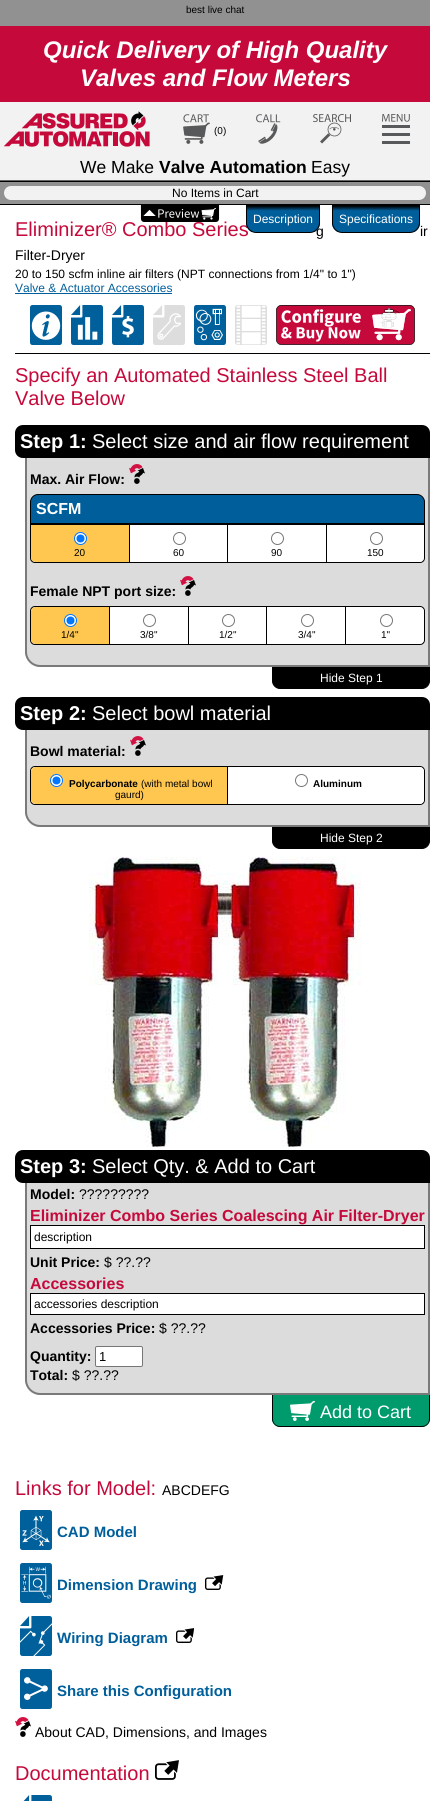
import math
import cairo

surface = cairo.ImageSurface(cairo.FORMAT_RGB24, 430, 1801)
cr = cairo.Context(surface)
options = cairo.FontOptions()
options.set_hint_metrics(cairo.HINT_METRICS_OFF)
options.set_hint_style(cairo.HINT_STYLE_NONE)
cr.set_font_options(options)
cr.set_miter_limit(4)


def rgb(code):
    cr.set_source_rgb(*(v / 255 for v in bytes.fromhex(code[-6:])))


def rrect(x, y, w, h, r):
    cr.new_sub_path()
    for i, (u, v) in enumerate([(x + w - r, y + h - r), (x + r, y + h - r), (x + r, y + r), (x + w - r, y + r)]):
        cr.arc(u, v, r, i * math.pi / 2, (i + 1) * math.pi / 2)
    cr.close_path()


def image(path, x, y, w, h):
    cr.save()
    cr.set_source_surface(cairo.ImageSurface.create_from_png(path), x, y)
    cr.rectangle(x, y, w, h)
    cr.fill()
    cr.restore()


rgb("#919191")
cr.paint()
for x, y, w, h, color in [
    (0, 26, 430, 76, "#c6093b"),
    (0, 102, 430, 78, "#f2f2f2"),
    (0, 180, 430, 1, "#666666"),
]:
    rgb(color)
    cr.rectangle(x, y, w, h)
    cr.fill()
image("img/1.png", 3, 111, 147, 36)
image("img/2.png", 183, 114, 27, 30)
image("img/3.png", 256, 114, 25, 30)
image("img/4.png", 313, 114, 38, 30)
image("img/5.png", 382, 114, 28, 30)
rgb("#000000")
cr.rectangle(0, 181, 430, 1)
cr.fill()
cr.rectangle(0, 204, 430, 1)
cr.fill()
rgb("#f2f2f2")
rrect(4, 186, 422, 14, 7)
cr.fill()
rgb("#ffffff")
cr.rectangle(0, 205, 430, 1596)
cr.fill()
cr.save()
cr.new_path()
cr.move_to(332, 205)
cr.line_to(420, 205)
cr.line_to(420, 223)
cr.curve_to(420, 228.5, 415.5, 233, 410, 233)
cr.line_to(342, 233)
cr.curve_to(336.5, 233, 332, 228.5, 332, 223)
cr.close_path()
cr.clip()
gradient = cairo.LinearGradient(376, 206, 376, 232)
gradient.add_color_stop_rgba(0, 0, 0, 0, 1)
gradient.add_color_stop_rgba(0.18, 0, 0.373, 0.608, 1)
cr.set_source(gradient)
cr.rectangle(332, 206, 88, 26)
cr.fill()
cr.restore()
cr.new_path()
cr.move_to(332.5, 205.5)
cr.line_to(419.5, 205.5)
cr.line_to(419.5, 223)
cr.curve_to(419.5, 228, 415, 232.5, 410, 232.5)
cr.line_to(342, 232.5)
cr.curve_to(337, 232.5, 332.5, 228, 332.5, 223)
cr.close_path()
rgb("#000000")
cr.set_line_width(1)
cr.stroke()
cr.rectangle(15, 353, 415, 1)
cr.fill()
rgb("#005f9b")
cr.rectangle(15, 293, 157, 1)
cr.fill()
image("img/7.png", 30, 305, 32, 40)
image("img/8.png", 71, 305, 32, 40)
image("img/9.png", 112, 305, 32, 40)
image("img/10.png", 153, 305, 32, 40)
image("img/11.png", 194, 305, 32, 40)
image("img/12.png", 235, 305, 32, 40)
image("img/13.png", 276, 305, 139, 40)
rgb("#000000")
cr.new_path()
cr.move_to(23, 425)
cr.line_to(422, 425)
cr.curve_to(426.5, 425, 430, 428.5, 430, 433)
cr.line_to(430, 458)
cr.line_to(23, 458)
cr.curve_to(18.5, 458, 15, 454.5, 15, 450)
cr.line_to(15, 433)
cr.curve_to(15, 428.5, 18.5, 425, 23, 425)
cr.close_path()
cr.fill()
rgb("#dcdcdc")
cr.new_path()
cr.move_to(25, 458)
cr.line_to(430, 458)
cr.line_to(430, 667)
cr.line_to(40, 667)
cr.curve_to(31.5, 667, 25, 660.5, 25, 652)
cr.close_path()
cr.fill()
rgb("#7a7a7a")
cr.set_fill_rule(cairo.FILL_RULE_EVEN_ODD)
cr.new_path()
cr.move_to(25, 458)
cr.line_to(430, 458)
cr.line_to(430, 667)
cr.line_to(40, 667)
cr.curve_to(32, 667, 25, 660, 25, 652)
cr.close_path()
cr.move_to(27, 458)
cr.line_to(428, 458)
cr.line_to(428, 665)
cr.line_to(40, 665)
cr.curve_to(33, 665, 27, 659, 27, 652)
cr.close_path()
cr.fill()
image("img/14.png", 129, 464, 16, 20)
rgb("#005f9b")
cr.new_path()
cr.move_to(38, 494.5)
cr.line_to(417, 494.5)
cr.curve_to(421, 494.5, 424.5, 498, 424.5, 502)
cr.line_to(424.5, 523.5)
cr.line_to(30.5, 523.5)
cr.line_to(30.5, 502)
cr.curve_to(30.5, 498, 34, 494.5, 38, 494.5)
cr.close_path()
cr.fill_preserve()
rgb("#000000")
cr.stroke()
cr.new_path()
cr.move_to(30.5, 524.5)
cr.line_to(424.5, 524.5)
cr.line_to(424.5, 558)
cr.curve_to(424.5, 560.5, 422.5, 562.5, 420, 562.5)
cr.line_to(35, 562.5)
cr.curve_to(32.5, 562.5, 30.5, 560.5, 30.5, 558)
cr.close_path()
cr.stroke()
rgb("#ffc750")
cr.new_path()
cr.move_to(31, 525)
cr.line_to(129, 525)
cr.line_to(129, 562)
cr.line_to(36, 562)
cr.curve_to(33, 562, 31, 560, 31, 557)
cr.close_path()
cr.fill()
rgb("#ffffff")
cr.arc(80.5, 538.5, 6, 0, 2 * math.pi)
cr.fill_preserve()
rgb("#0075ff")
cr.stroke()
cr.arc(80.5, 538.5, 4, 0, 2 * math.pi)
cr.fill()
rgb("#ffffff")
cr.rectangle(130, 525, 97, 37)
cr.fill()
rgb("#000000")
cr.rectangle(129, 525, 1, 37)
cr.fill()
cr.arc(179.5, 538.5, 6, 0, 2 * math.pi)
rgb("#767676")
cr.stroke()
rgb("#ffffff")
cr.rectangle(228, 525, 98, 37)
cr.fill()
rgb("#000000")
cr.rectangle(227, 525, 1, 37)
cr.fill()
cr.arc(277.5, 538.5, 6, 0, 2 * math.pi)
rgb("#767676")
cr.stroke()
rgb("#ffffff")
cr.new_path()
cr.move_to(326, 525)
cr.line_to(424, 525)
cr.line_to(424, 557)
cr.curve_to(424, 560, 422, 562, 419, 562)
cr.line_to(326, 562)
cr.close_path()
cr.fill()
rgb("#000000")
cr.rectangle(326, 525, 1, 37)
cr.fill()
cr.arc(376.5, 538.5, 6, 0, 2 * math.pi)
rgb("#767676")
cr.stroke()
image("img/14.png", 180, 576, 16, 20)
rrect(30.5, 606.5, 394, 38, 4.5)
rgb("#000000")
cr.stroke()
rgb("#ffc750")
cr.new_path()
cr.move_to(36, 607)
cr.line_to(109, 607)
cr.line_to(109, 644)
cr.line_to(36, 644)
cr.curve_to(33, 644, 31, 642, 31, 639)
cr.line_to(31, 612)
cr.curve_to(31, 609, 33, 607, 36, 607)
cr.close_path()
cr.fill()
rgb("#ffffff")
cr.arc(70.5, 620.5, 6, 0, 2 * math.pi)
cr.fill_preserve()
rgb("#0075ff")
cr.stroke()
cr.arc(70.5, 620.5, 4, 0, 2 * math.pi)
cr.fill()
rgb("#ffffff")
cr.rectangle(110, 607, 78, 37)
cr.fill()
rgb("#000000")
cr.rectangle(109, 607, 1, 37)
cr.fill()
cr.arc(149.5, 620.5, 6, 0, 2 * math.pi)
rgb("#767676")
cr.stroke()
rgb("#ffffff")
cr.rectangle(189, 607, 77, 37)
cr.fill()
rgb("#000000")
cr.rectangle(188, 607, 1, 37)
cr.fill()
cr.arc(228.5, 620.5, 6, 0, 2 * math.pi)
rgb("#767676")
cr.stroke()
rgb("#ffffff")
cr.rectangle(267, 607, 78, 37)
cr.fill()
rgb("#000000")
cr.rectangle(266, 607, 1, 37)
cr.fill()
cr.arc(307.5, 620.5, 6, 0, 2 * math.pi)
rgb("#767676")
cr.stroke()
rgb("#ffffff")
cr.new_path()
cr.move_to(345, 607)
cr.line_to(419, 607)
cr.curve_to(422, 607, 424, 609, 424, 612)
cr.line_to(424, 639)
cr.curve_to(424, 642, 422, 644, 419, 644)
cr.line_to(345, 644)
cr.close_path()
cr.fill()
rgb("#000000")
cr.rectangle(345, 607, 1, 37)
cr.fill()
cr.arc(386.5, 620.5, 6, 0, 2 * math.pi)
rgb("#767676")
cr.stroke()
rgb("#000000")
cr.new_path()
cr.move_to(272.5, 667.5)
cr.line_to(429.5, 667.5)
cr.line_to(429.5, 681)
cr.curve_to(429.5, 685, 426, 688.5, 422, 688.5)
cr.line_to(280, 688.5)
cr.curve_to(276, 688.5, 272.5, 685, 272.5, 681)
cr.close_path()
cr.fill_preserve()
cr.stroke()
cr.new_path()
cr.move_to(23, 697)
cr.line_to(422, 697)
cr.curve_to(426.5, 697, 430, 700.5, 430, 705)
cr.line_to(430, 730)
cr.line_to(23, 730)
cr.curve_to(18.5, 730, 15, 726.5, 15, 722)
cr.line_to(15, 705)
cr.curve_to(15, 700.5, 18.5, 697, 23, 697)
cr.close_path()
cr.fill()
rgb("#dcdcdc")
cr.new_path()
cr.move_to(25, 730)
cr.line_to(430, 730)
cr.line_to(430, 827)
cr.line_to(40, 827)
cr.curve_to(31.5, 827, 25, 820.5, 25, 812)
cr.close_path()
cr.fill()
rgb("#7a7a7a")
cr.new_path()
cr.move_to(25, 730)
cr.line_to(430, 730)
cr.line_to(430, 827)
cr.line_to(40, 827)
cr.curve_to(32, 827, 25, 820, 25, 812)
cr.close_path()
cr.move_to(27, 730)
cr.line_to(428, 730)
cr.line_to(428, 825)
cr.line_to(40, 825)
cr.curve_to(33, 825, 27, 819, 27, 812)
cr.close_path()
cr.fill()
image("img/14.png", 130, 736, 16, 20)
rgb("#ffffff")
rrect(30.5, 766.5, 394, 38, 4.5)
cr.fill_preserve()
rgb("#000000")
cr.stroke()
rgb("#ffc750")
cr.new_path()
cr.move_to(36, 767)
cr.line_to(227, 767)
cr.line_to(227, 804)
cr.line_to(36, 804)
cr.curve_to(33, 804, 31, 802, 31, 799)
cr.line_to(31, 772)
cr.curve_to(31, 769, 33, 767, 36, 767)
cr.close_path()
cr.fill()
rgb("#ffffff")
cr.arc(56.5, 780.5, 6, 0, 2 * math.pi)
cr.fill_preserve()
rgb("#0075ff")
cr.stroke()
cr.arc(56.5, 780.5, 4, 0, 2 * math.pi)
cr.fill()
rgb("#ffffff")
cr.new_path()
cr.move_to(227, 767)
cr.line_to(419, 767)
cr.curve_to(422, 767, 424, 769, 424, 772)
cr.line_to(424, 799)
cr.curve_to(424, 802, 422, 804, 419, 804)
cr.line_to(227, 804)
cr.close_path()
cr.fill()
rgb("#000000")
cr.rectangle(227, 767, 1, 37)
cr.fill()
cr.arc(301.5, 780.5, 6, 0, 2 * math.pi)
rgb("#767676")
cr.stroke()
rgb("#000000")
cr.new_path()
cr.move_to(272.5, 827.5)
cr.line_to(429.5, 827.5)
cr.line_to(429.5, 841)
cr.curve_to(429.5, 845, 426, 848.5, 422, 848.5)
cr.line_to(280, 848.5)
cr.curve_to(276, 848.5, 272.5, 845, 272.5, 841)
cr.close_path()
cr.fill_preserve()
cr.stroke()
image("img/15.png", 89, 857, 272, 290)
cr.new_path()
cr.move_to(23, 1150)
cr.line_to(422, 1150)
cr.curve_to(426.5, 1150, 430, 1153.5, 430, 1158)
cr.line_to(430, 1183)
cr.line_to(23, 1183)
cr.curve_to(18.5, 1183, 15, 1179.5, 15, 1175)
cr.line_to(15, 1158)
cr.curve_to(15, 1153.5, 18.5, 1150, 23, 1150)
cr.close_path()
cr.fill()
rgb("#dcdcdc")
cr.new_path()
cr.move_to(25, 1183)
cr.line_to(430, 1183)
cr.line_to(430, 1395)
cr.line_to(40, 1395)
cr.curve_to(31.5, 1395, 25, 1388.5, 25, 1380)
cr.close_path()
cr.fill()
rgb("#7a7a7a")
cr.new_path()
cr.move_to(25, 1183)
cr.line_to(430, 1183)
cr.line_to(430, 1395)
cr.line_to(40, 1395)
cr.curve_to(32, 1395, 25, 1388, 25, 1380)
cr.close_path()
cr.move_to(27, 1183)
cr.line_to(428, 1183)
cr.line_to(428, 1393)
cr.line_to(40, 1393)
cr.curve_to(33, 1393, 27, 1387, 27, 1380)
cr.close_path()
cr.fill()
rgb("#ffffff")
cr.rectangle(30.5, 1225.5, 394, 23)
cr.fill_preserve()
rgb("#000000")
cr.stroke()
rgb("#ffffff")
cr.rectangle(30.5, 1293.5, 394, 21)
cr.fill_preserve()
rgb("#000000")
cr.stroke()
rgb("#ffffff")
rrect(95.5, 1346.5, 47, 20, 1.5)
cr.fill_preserve()
rgb("#767676")
cr.stroke()
rgb("#009b6d")
cr.new_path()
cr.move_to(272, 1395)
cr.line_to(430, 1395)
cr.line_to(430, 1419)
cr.curve_to(430, 1423.5, 426.5, 1427, 422, 1427)
cr.line_to(280, 1427)
cr.curve_to(275.5, 1427, 272, 1423.5, 272, 1419)
cr.close_path()
cr.fill()
rgb("#000000")
cr.new_path()
cr.move_to(272, 1395)
cr.line_to(430, 1395)
cr.line_to(430, 1419)
cr.curve_to(430, 1423, 426, 1427, 422, 1427)
cr.line_to(280, 1427)
cr.curve_to(276, 1427, 272, 1423, 272, 1419)
cr.close_path()
cr.move_to(273, 1395)
cr.line_to(429, 1395)
cr.line_to(429, 1419)
cr.curve_to(429, 1423, 426, 1426, 422, 1426)
cr.line_to(280, 1426)
cr.curve_to(276, 1426, 273, 1423, 273, 1419)
cr.close_path()
cr.fill()
image("img/16.png", 290, 1401, 25, 20)
image("img/17.png", 20, 1510, 32, 40)
image("img/18.png", 20, 1563, 32, 40)
image("img/19.png", 205, 1575, 19, 15)
image("img/20.png", 20, 1616, 32, 40)
image("img/21.png", 176, 1628, 18, 15)
image("img/22.png", 20, 1669, 32, 40)
image("img/23.png", 15, 1717, 16, 20)
image("img/24.png", 155, 1760, 24, 20)
image("img/25.png", 23, 1795, 29, 6)
cr.select_font_face("Liberation Sans")
cr.set_font_size(10)
cr.move_to(186, 13)
cr.show_text("best live chat")
cr.select_font_face("Liberation Sans", cairo.FONT_SLANT_ITALIC, cairo.FONT_WEIGHT_BOLD)
cr.set_font_size(24)
rgb("#ffffff")
cr.move_to(43, 58)
cr.show_text("Quick Delivery of High Quality")
cr.move_to(80, 86)
cr.show_text("Valves and Flow Meters")
cr.select_font_face("Liberation Sans")
cr.set_font_size(10)
rgb("#000000")
cr.move_to(214, 134)
cr.show_text("(0)")
cr.set_font_size(17.5)
cr.move_to(80, 173)
cr.show_text("We Make")
cr.select_font_face("Liberation Sans", cairo.FONT_SLANT_NORMAL, cairo.FONT_WEIGHT_BOLD)
cr.move_to(159, 173)
cr.show_text("Valve Automation")
cr.select_font_face("Liberation Sans")
cr.move_to(311, 173)
cr.show_text("Easy")
cr.set_font_size(12)
cr.move_to(172, 197)
cr.show_text("No Items in Cart")
rgb("#ffffff")
cr.move_to(339, 223)
cr.show_text("Specifications")
cr.set_font_size(20)
rgb("#c6093b")
cr.move_to(15, 236)
cr.show_text("Eliminizer® Combo Series")
image("img/6.png", 140, 205, 80, 17)
cr.set_font_size(14)
rgb("#000000")
cr.move_to(316, 236)
cr.show_text("g")
cr.save()
cr.set_fill_rule(cairo.FILL_RULE_WINDING)
cr.new_path()
cr.move_to(246, 205)
cr.line_to(320, 205)
cr.line_to(320, 223)
cr.curve_to(320, 228.5, 315.5, 233, 310, 233)
cr.line_to(256, 233)
cr.curve_to(250.5, 233, 246, 228.5, 246, 223)
cr.close_path()
cr.clip()
gradient = cairo.LinearGradient(283, 206, 283, 232)
gradient.add_color_stop_rgba(0, 0, 0, 0, 1)
gradient.add_color_stop_rgba(0.18, 0, 0.373, 0.608, 1)
cr.set_source(gradient)
cr.rectangle(246, 206, 74, 26)
cr.fill()
cr.restore()
cr.new_path()
cr.move_to(246.5, 205.5)
cr.line_to(319.5, 205.5)
cr.line_to(319.5, 223)
cr.curve_to(319.5, 228, 315, 232.5, 310, 232.5)
cr.line_to(256, 232.5)
cr.curve_to(251, 232.5, 246.5, 228, 246.5, 223)
cr.close_path()
cr.stroke()
cr.set_font_size(12)
rgb("#ffffff")
cr.move_to(253, 223)
cr.show_text("Description")
cr.set_font_size(14)
rgb("#000000")
cr.move_to(420, 236)
cr.show_text("ir")
cr.move_to(15, 260)
cr.show_text("Filter-Dryer")
cr.set_font_size(12)
cr.move_to(15, 278)
cr.show_text("20 to 150 scfm inline air filters (NPT connections from 1/4\" to 1\")")
rgb("#005f9b")
cr.move_to(15, 292)
cr.show_text("Valve & Actuator Accessories")
cr.set_font_size(20)
rgb("#c6093b")
cr.move_to(15, 382)
cr.show_text("Specify an Automated Stainless Steel Ball")
cr.move_to(15, 405)
cr.show_text("Valve Below")
cr.select_font_face("Liberation Sans", cairo.FONT_SLANT_NORMAL, cairo.FONT_WEIGHT_BOLD)
rgb("#ffffff")
cr.move_to(20, 448)
cr.show_text("Step 1:")
cr.select_font_face("Liberation Sans")
cr.move_to(92, 448)
cr.show_text("Select size and air flow requirement")
cr.select_font_face("Liberation Sans", cairo.FONT_SLANT_NORMAL, cairo.FONT_WEIGHT_BOLD)
cr.set_font_size(14)
rgb("#000000")
cr.move_to(30, 484)
cr.show_text("Max. Air Flow:")
cr.set_font_size(16)
rgb("#ffffff")
cr.move_to(36, 514)
cr.show_text("SCFM")
cr.select_font_face("Liberation Sans")
cr.set_font_size(10)
rgb("#000000")
for x, y, s in [
    (74, 556, "20"),
    (173, 556, "60"),
    (271, 556, "90"),
    (367, 556, "150"),
]:
    cr.move_to(x, y)
    cr.show_text(s)
cr.select_font_face("Liberation Sans", cairo.FONT_SLANT_NORMAL, cairo.FONT_WEIGHT_BOLD)
cr.set_font_size(14)
cr.move_to(30, 596)
cr.show_text("Female NPT port size:")
cr.select_font_face("Liberation Sans")
cr.set_font_size(10)
for x, y, s in [
    (61, 638, "1/4\""),
    (140, 638, "3/8\""),
    (219, 638, "1/2\""),
    (298, 638, "3/4\""),
    (381, 638, "1\""),
]:
    cr.move_to(x, y)
    cr.show_text(s)
cr.set_font_size(12)
rgb("#ffffff")
cr.move_to(320, 682)
cr.show_text("Hide Step 1")
cr.select_font_face("Liberation Sans", cairo.FONT_SLANT_NORMAL, cairo.FONT_WEIGHT_BOLD)
cr.set_font_size(20)
cr.move_to(20, 720)
cr.show_text("Step 2:")
cr.select_font_face("Liberation Sans")
cr.move_to(92, 720)
cr.show_text("Select bowl material")
cr.select_font_face("Liberation Sans", cairo.FONT_SLANT_NORMAL, cairo.FONT_WEIGHT_BOLD)
cr.set_font_size(14)
rgb("#000000")
cr.move_to(30, 756)
cr.show_text("Bowl material:")
cr.set_font_size(10)
cr.move_to(69, 787)
cr.show_text("Polycarbonate")
cr.select_font_face("Liberation Sans")
cr.move_to(141, 787)
cr.show_text("(with metal bowl")
cr.move_to(115, 798)
cr.show_text("gaurd)")
cr.select_font_face("Liberation Sans", cairo.FONT_SLANT_NORMAL, cairo.FONT_WEIGHT_BOLD)
cr.move_to(313, 787)
cr.show_text("Aluminum")
cr.select_font_face("Liberation Sans")
cr.set_font_size(12)
rgb("#ffffff")
cr.move_to(320, 842)
cr.show_text("Hide Step 2")
cr.select_font_face("Liberation Sans", cairo.FONT_SLANT_NORMAL, cairo.FONT_WEIGHT_BOLD)
cr.set_font_size(20)
cr.move_to(20, 1173)
cr.show_text("Step 3:")
cr.select_font_face("Liberation Sans")
cr.move_to(92, 1173)
cr.show_text("Select Qty. & Add to Cart")
cr.select_font_face("Liberation Sans", cairo.FONT_SLANT_NORMAL, cairo.FONT_WEIGHT_BOLD)
cr.set_font_size(14)
rgb("#000000")
cr.move_to(30, 1199)
cr.show_text("Model:")
cr.select_font_face("Liberation Sans")
cr.move_to(79, 1199)
cr.show_text("?????????")
cr.select_font_face("Liberation Sans", cairo.FONT_SLANT_NORMAL, cairo.FONT_WEIGHT_BOLD)
cr.set_font_size(16)
rgb("#c6093b")
cr.move_to(30, 1221)
cr.show_text("Eliminizer Combo Series Coalescing Air Filter-Dryer")
cr.select_font_face("Liberation Sans")
cr.set_font_size(12)
rgb("#000000")
cr.move_to(34, 1241)
cr.show_text("description")
cr.select_font_face("Liberation Sans", cairo.FONT_SLANT_NORMAL, cairo.FONT_WEIGHT_BOLD)
cr.set_font_size(14)
cr.move_to(30, 1267)
cr.show_text("Unit Price:")
cr.select_font_face("Liberation Sans")
cr.move_to(104, 1267)
cr.show_text("$ ??.??")
cr.select_font_face("Liberation Sans", cairo.FONT_SLANT_NORMAL, cairo.FONT_WEIGHT_BOLD)
cr.set_font_size(16)
rgb("#c6093b")
cr.move_to(30, 1289)
cr.show_text("Accessories")
cr.select_font_face("Liberation Sans")
cr.set_font_size(12)
rgb("#000000")
cr.move_to(34, 1308)
cr.show_text("accessories description")
cr.select_font_face("Liberation Sans", cairo.FONT_SLANT_NORMAL, cairo.FONT_WEIGHT_BOLD)
cr.set_font_size(14)
cr.move_to(30, 1333)
cr.show_text("Accessories Price:")
cr.select_font_face("Liberation Sans")
cr.move_to(159, 1333)
cr.show_text("$ ??.??")
cr.select_font_face("Liberation Sans", cairo.FONT_SLANT_NORMAL, cairo.FONT_WEIGHT_BOLD)
cr.move_to(30, 1361)
cr.show_text("Quantity:")
cr.select_font_face("Liberation Sans")
cr.set_font_size(13)
cr.move_to(99, 1361)
cr.show_text("1")
cr.select_font_face("Liberation Sans", cairo.FONT_SLANT_NORMAL, cairo.FONT_WEIGHT_BOLD)
cr.set_font_size(14)
cr.move_to(30, 1380)
cr.show_text("Total:")
cr.select_font_face("Liberation Sans")
cr.move_to(72, 1380)
cr.show_text("$ ??.??")
cr.set_font_size(18)
rgb("#ffffff")
cr.move_to(320, 1418)
cr.show_text("Add to Cart")
cr.set_font_size(20)
rgb("#c6093b")
cr.move_to(15, 1495)
cr.show_text("Links for Model:")
cr.set_font_size(14)
rgb("#000000")
cr.move_to(162, 1495)
cr.show_text("ABCDEFG")
cr.select_font_face("Liberation Sans", cairo.FONT_SLANT_NORMAL, cairo.FONT_WEIGHT_BOLD)
cr.set_font_size(15)
rgb("#005f9b")
for x, y, s in [
    (57, 1537, "CAD Model"),
    (57, 1590, "Dimension Drawing"),
    (57, 1643, "Wiring Diagram"),
    (57, 1696, "Share this Configuration"),
]:
    cr.move_to(x, y)
    cr.show_text(s)
cr.select_font_face("Liberation Sans")
cr.set_font_size(14)
rgb("#000000")
cr.move_to(35, 1737)
cr.show_text("About CAD, Dimensions, and Images")
cr.set_font_size(20)
rgb("#c6093b")
cr.move_to(15, 1780)
cr.show_text("Documentation")
surface.write_to_png("page.png")
